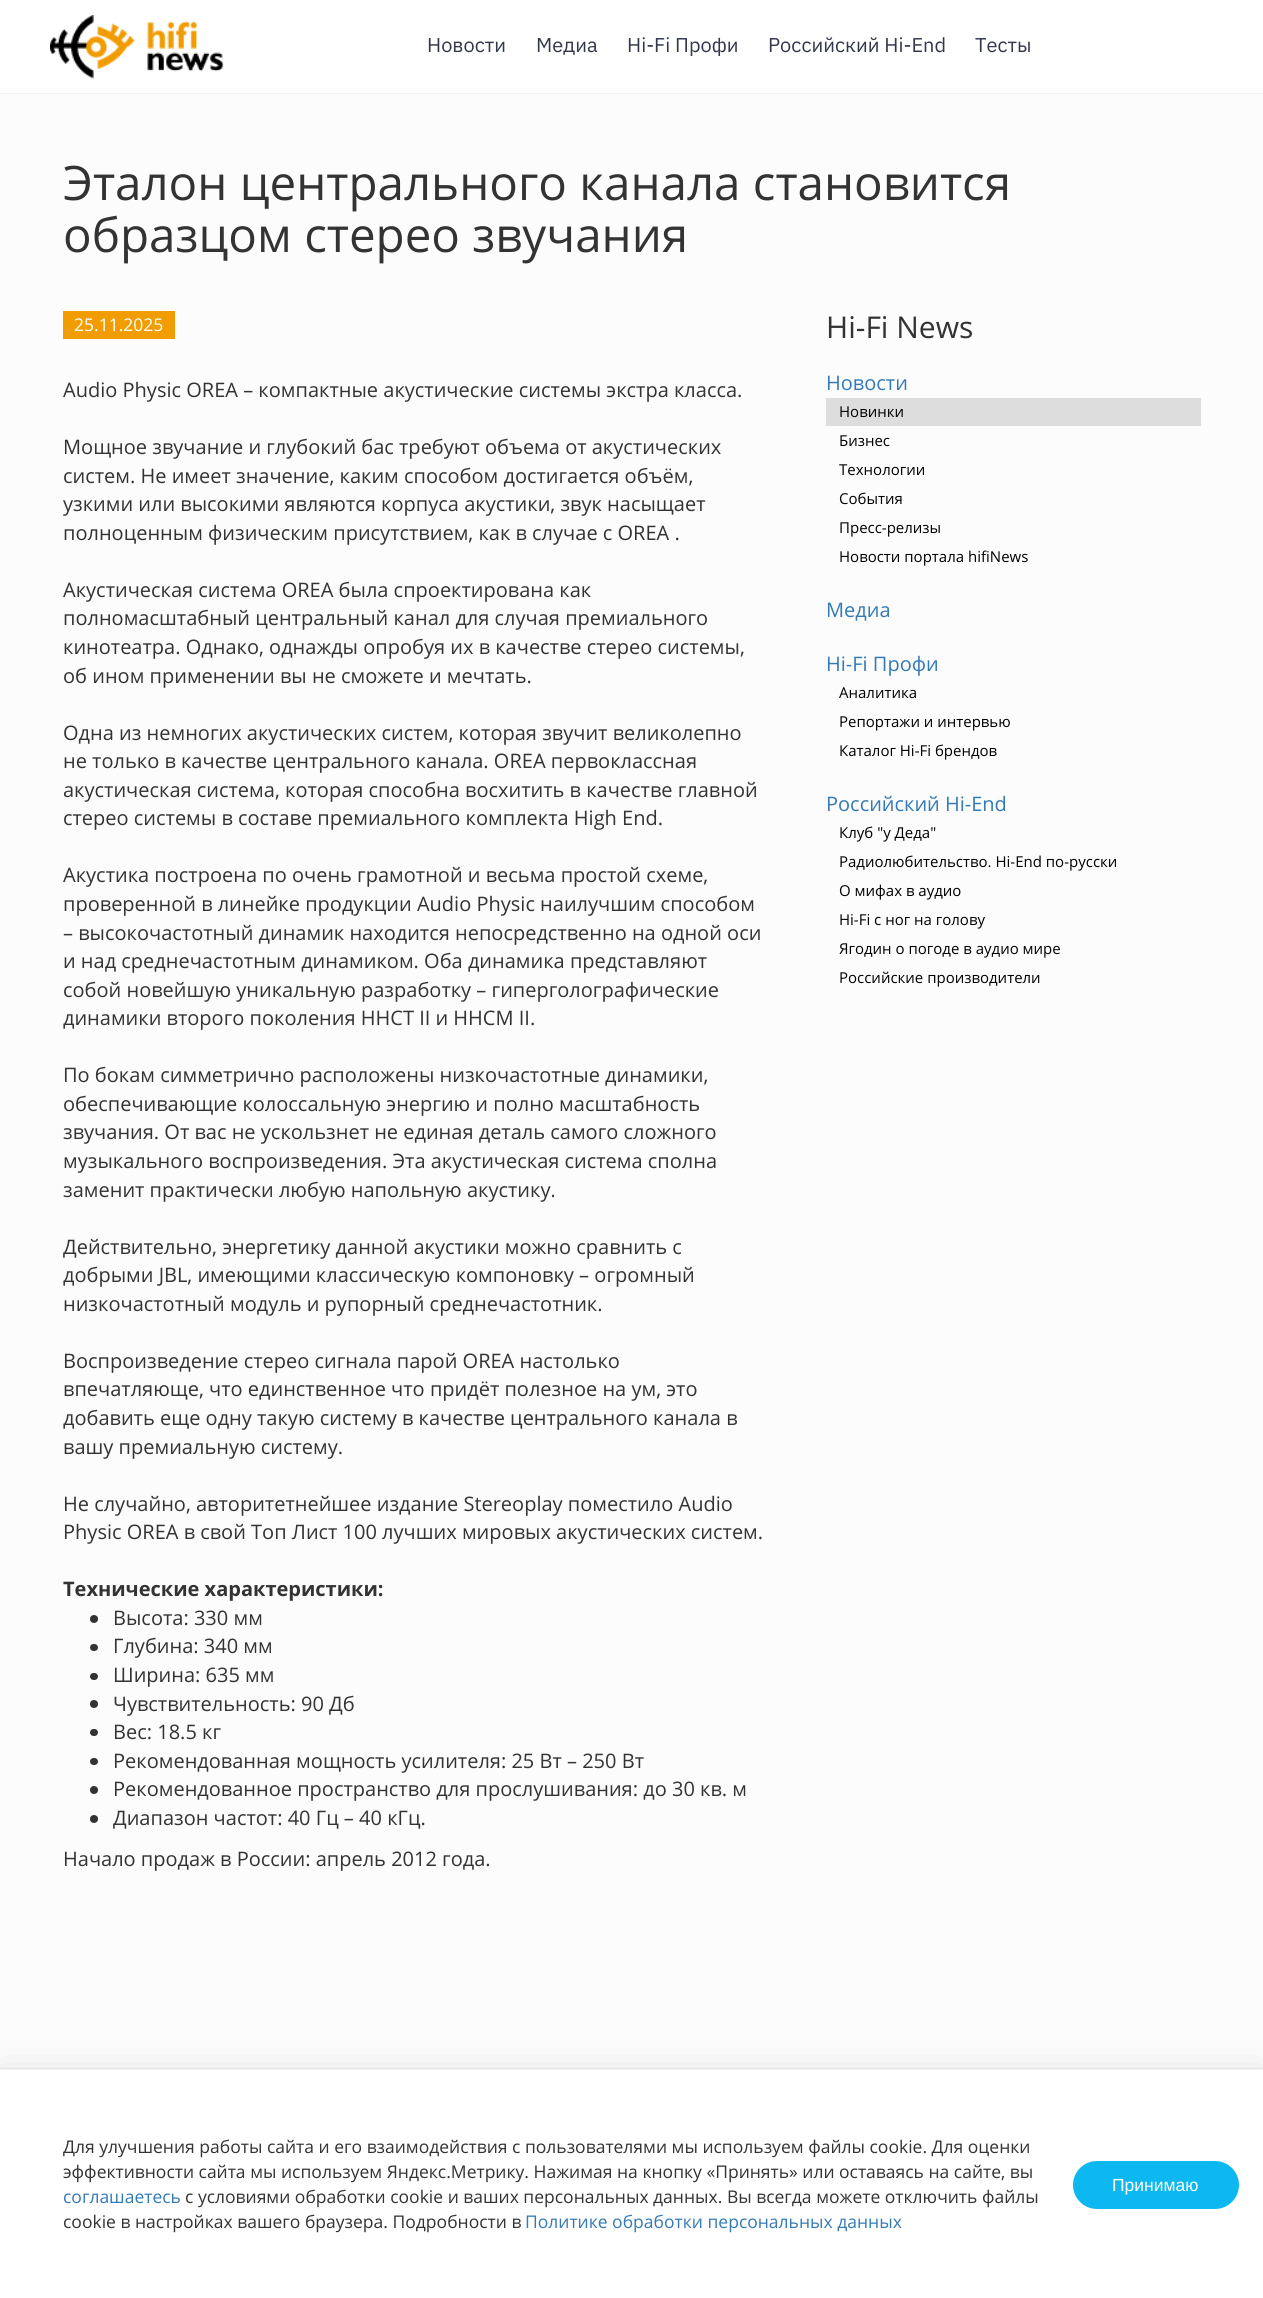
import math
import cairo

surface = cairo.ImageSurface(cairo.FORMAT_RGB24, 1263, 2298)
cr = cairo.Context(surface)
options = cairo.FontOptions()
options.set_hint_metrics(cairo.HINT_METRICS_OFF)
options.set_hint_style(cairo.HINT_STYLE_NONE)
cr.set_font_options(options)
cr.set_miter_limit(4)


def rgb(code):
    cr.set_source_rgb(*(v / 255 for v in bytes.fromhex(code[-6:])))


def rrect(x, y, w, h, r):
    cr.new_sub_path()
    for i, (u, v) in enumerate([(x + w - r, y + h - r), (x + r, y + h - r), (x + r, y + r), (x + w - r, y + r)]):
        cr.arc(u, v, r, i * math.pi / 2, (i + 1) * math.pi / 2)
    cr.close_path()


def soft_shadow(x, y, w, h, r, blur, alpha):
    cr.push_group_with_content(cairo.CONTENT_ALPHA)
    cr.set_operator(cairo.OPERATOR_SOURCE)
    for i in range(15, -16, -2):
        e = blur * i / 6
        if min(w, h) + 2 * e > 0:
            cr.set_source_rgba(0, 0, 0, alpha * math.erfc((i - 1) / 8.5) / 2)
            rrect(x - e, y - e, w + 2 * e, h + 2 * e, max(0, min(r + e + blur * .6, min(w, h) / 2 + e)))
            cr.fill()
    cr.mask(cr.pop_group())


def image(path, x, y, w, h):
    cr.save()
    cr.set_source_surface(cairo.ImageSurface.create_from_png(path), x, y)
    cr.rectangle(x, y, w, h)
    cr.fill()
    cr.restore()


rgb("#fcfcfc")
cr.paint()
rgb("#ffffff")
cr.rectangle(0, 0, 1263, 93)
cr.fill()
rgb("#edf0f4")
cr.rectangle(0, 93, 1263, 1)
cr.fill()
image("img/1.png", 50, 15, 174, 64)
rgb("#f19c01")
cr.rectangle(63, 311, 112, 28)
cr.fill()
rgb("#333333")
cr.arc(94, 1619, 4, 0, 2 * math.pi)
cr.fill()
rrect(90, 1644, 8, 7, 3.5)
cr.fill()
rrect(90, 1673, 8, 7, 3.5)
cr.fill()
cr.arc(94, 1704, 4, 0, 2 * math.pi)
cr.fill()
rrect(90, 1729, 8, 7, 3.5)
cr.fill()
rrect(90, 1758, 8, 7, 3.5)
cr.fill()
cr.arc(94, 1790, 4, 0, 2 * math.pi)
cr.fill()
cr.arc(94, 1819, 4, 0, 2 * math.pi)
cr.fill()
rgb("#dddddd")
cr.rectangle(826, 398, 375, 28)
cr.fill()
cr.rectangle(-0.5, 2068.5, 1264, 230)
rgb("#ededed")
cr.set_line_width(1)
cr.stroke()
rgb("#000000")
soft_shadow(0, 2081, 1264, 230, 0, 22.5, 0.16)
rgb("#ffffff")
cr.rectangle(0, 2070, 1263, 228)
cr.fill()
rgb("#f1f3f6")
cr.rectangle(0, 2069, 1263, 1)
cr.fill()
rgb("#0db8f1")
rrect(1074.5, 2162.5, 163, 45, 22.5)
cr.fill_preserve()
cr.set_line_width(3)
cr.stroke()
cr.select_font_face("IBM Plex Sans")
cr.set_font_size(20)
rgb("#33374c")
for x, y, s in [
    (427, 52, "Новости"),
    (536, 52, "Медиа"),
    (627, 52, "Hi-Fi Профи"),
    (768, 52, "Российский Hi-End"),
    (975, 52, "Тесты"),
]:
    cr.move_to(x, y)
    cr.show_text(s)
cr.select_font_face("Open Sans")
cr.set_font_size(47.5)
rgb("#333333")
cr.move_to(63, 200)
cr.show_text("Эталон центрального канала становится")
cr.move_to(63, 252)
cr.show_text("образцом стерео звучания")
cr.set_font_size(17.5)
rgb("#ffffff")
cr.move_to(74, 331)
cr.show_text("25.11.2025")
cr.set_font_size(20)
rgb("#333333")
for x, y, s in [
    (63, 397, "Audio Physic OREA – компактные акустические системы экстра класса."),
    (63, 454, "Мощное звучание и глубокий бас требуют объема от акустических"),
    (63, 483, "систем. Не имеет значение, каким способом достигается объём,"),
    (63, 511, "узкими или высокими являются корпуса акустики, звук насыщает"),
    (63, 540, "полноценным физическим присутствием, как в случае с OREA ."),
    (63, 597, "Акустическая система OREA была спроектирована как"),
    (63, 625, "полномасштабный центральный канал для случая премиального"),
    (63, 654, "кинотеатра. Однако, однажды опробуя их в качестве стерео системы,"),
    (63, 683, "об ином применении вы не сможете и мечтать."),
    (63, 740, "Одна из немногих акустических систем, которая звучит великолепно"),
    (63, 768, "не только в качестве центрального канала. OREA первоклассная"),
    (63, 797, "акустическая система, которая способна восхитить в качестве главной"),
    (63, 825, "стерео системы в составе премиального комплекта High End."),
    (63, 882, "Акустика построена по очень грамотной и весьма простой схеме,"),
    (63, 911, "проверенной в линейке продукции Audio Physic наилучшим способом"),
    (63, 940, "– высокочастотный динамик находится непосредственно на одной оси"),
    (63, 968, "и над среднечастотным динамиком. Оба динамика представляют"),
    (63, 997, "собой новейшую уникальную разработку – гиперголографические"),
    (63, 1025, "динамики второго поколения HHCT II и HHCM II."),
    (63, 1082, "По бокам симметрично расположены низкочастотные динамики,"),
    (63, 1111, "обеспечивающие колоссальную энергию и полно масштабность"),
    (63, 1139, "звучания. От вас не ускользнет не единая деталь самого сложного"),
    (63, 1168, "музыкального воспроизведения. Эта акустическая система сполна"),
    (63, 1197, "заменит практически любую напольную акустику."),
    (63, 1254, "Действительно, энергетику данной акустики можно сравнить с"),
    (63, 1282, "добрыми JBL, имеющими классическую компоновку – огромный"),
    (63, 1311, "низкочастотный модуль и рупорный среднечастотник."),
    (63, 1368, "Воспроизведение стерео сигнала парой OREA настолько"),
    (63, 1396, "впечатляюще, что единственное что придёт полезное на ум, это"),
    (63, 1425, "добавить еще одну такую систему в качестве центрального канала в"),
    (63, 1454, "вашу премиальную систему."),
    (63, 1511, "Не случайно, авторитетнейшее издание Stereoplay поместило Audio"),
    (63, 1539, "Physic OREA в свой Топ Лист 100 лучших мировых акустических систем."),
]:
    cr.move_to(x, y)
    cr.show_text(s)
cr.select_font_face("Open Sans", cairo.FONT_SLANT_NORMAL, cairo.FONT_WEIGHT_BOLD)
cr.move_to(63, 1596)
cr.show_text("Технические характеристики:")
cr.select_font_face("Open Sans")
for x, y, s in [
    (113, 1625, "Высота: 330 мм"),
    (113, 1653, "Глубина: 340 мм"),
    (113, 1682, "Ширина: 635 мм"),
    (113, 1711, "Чувствительность: 90 Дб"),
    (113, 1739, "Вес: 18.5 кг"),
    (113, 1768, "Рекомендованная мощность усилителя: 25 Вт – 250 Вт"),
    (113, 1796, "Рекомендованное пространство для прослушивания: до 30 кв. м"),
    (113, 1825, "Диапазон частот: 40 Гц – 40 кГц."),
    (63, 1866, "Начало продаж в России: апрель 2012 года."),
]:
    cr.move_to(x, y)
    cr.show_text(s)
cr.set_font_size(30)
cr.move_to(826, 338)
cr.show_text("Hi-Fi News")
cr.set_font_size(20)
rgb("#337ab7")
cr.move_to(826, 390)
cr.show_text("Новости")
cr.set_font_size(15)
rgb("#000000")
for x, y, s in [
    (839, 417, "Новинки"),
    (839, 446, "Бизнес"),
    (839, 475, "Технологии"),
    (839, 504, "События"),
    (839, 533, "Пресс-релизы"),
    (839, 562, "Новости портала hifiNews"),
]:
    cr.move_to(x, y)
    cr.show_text(s)
cr.set_font_size(20)
rgb("#337ab7")
cr.move_to(826, 617)
cr.show_text("Медиа")
cr.move_to(826, 671)
cr.show_text("Hi-Fi Профи")
cr.set_font_size(15)
rgb("#000000")
for x, y, s in [
    (839, 698, "Аналитика"),
    (839, 727, "Репортажи и интервью"),
    (839, 756, "Каталог Hi-Fi брендов"),
]:
    cr.move_to(x, y)
    cr.show_text(s)
cr.set_font_size(20)
rgb("#337ab7")
cr.move_to(826, 811)
cr.show_text("Российский Hi-End")
cr.set_font_size(15)
rgb("#000000")
for x, y, s in [
    (839, 838, "Клуб \"у Деда\""),
    (839, 867, "Радиолюбительство. Hi-End по-русски"),
    (839, 896, "О мифах в аудио"),
    (839, 925, "Hi-Fi с ног на голову"),
    (839, 954, "Ягодин о погоде в аудио мире"),
    (839, 983, "Российские производители"),
]:
    cr.move_to(x, y)
    cr.show_text(s)
cr.set_font_size(17.5)
rgb("#333333")
cr.move_to(63, 2153)
cr.show_text("Для улучшения работы сайта и его взаимодействия с пользователями мы используем файлы cookie. Для оценки")
cr.move_to(63, 2178)
cr.show_text("эффективности сайта мы используем Яндекс.Метрику. Нажимая на кнопку «Принять» или оставаясь на сайте, вы")
rgb("#337ab7")
cr.move_to(63, 2203)
cr.show_text("соглашаетесь")
rgb("#333333")
cr.move_to(185, 2203)
cr.show_text("с условиями обработки cookie и ваших персональных данных. Вы всегда можете отключить файлы")
cr.move_to(63, 2228)
cr.show_text("cookie в настройках вашего браузера. Подробности в")
rgb("#337ab7")
cr.move_to(525, 2228)
cr.show_text("Политике обработки персональных данных")
cr.select_font_face("Liberation Sans")
rgb("#ffffff")
cr.move_to(1112, 2191)
cr.show_text("Принимаю")
surface.write_to_png("page.png")
